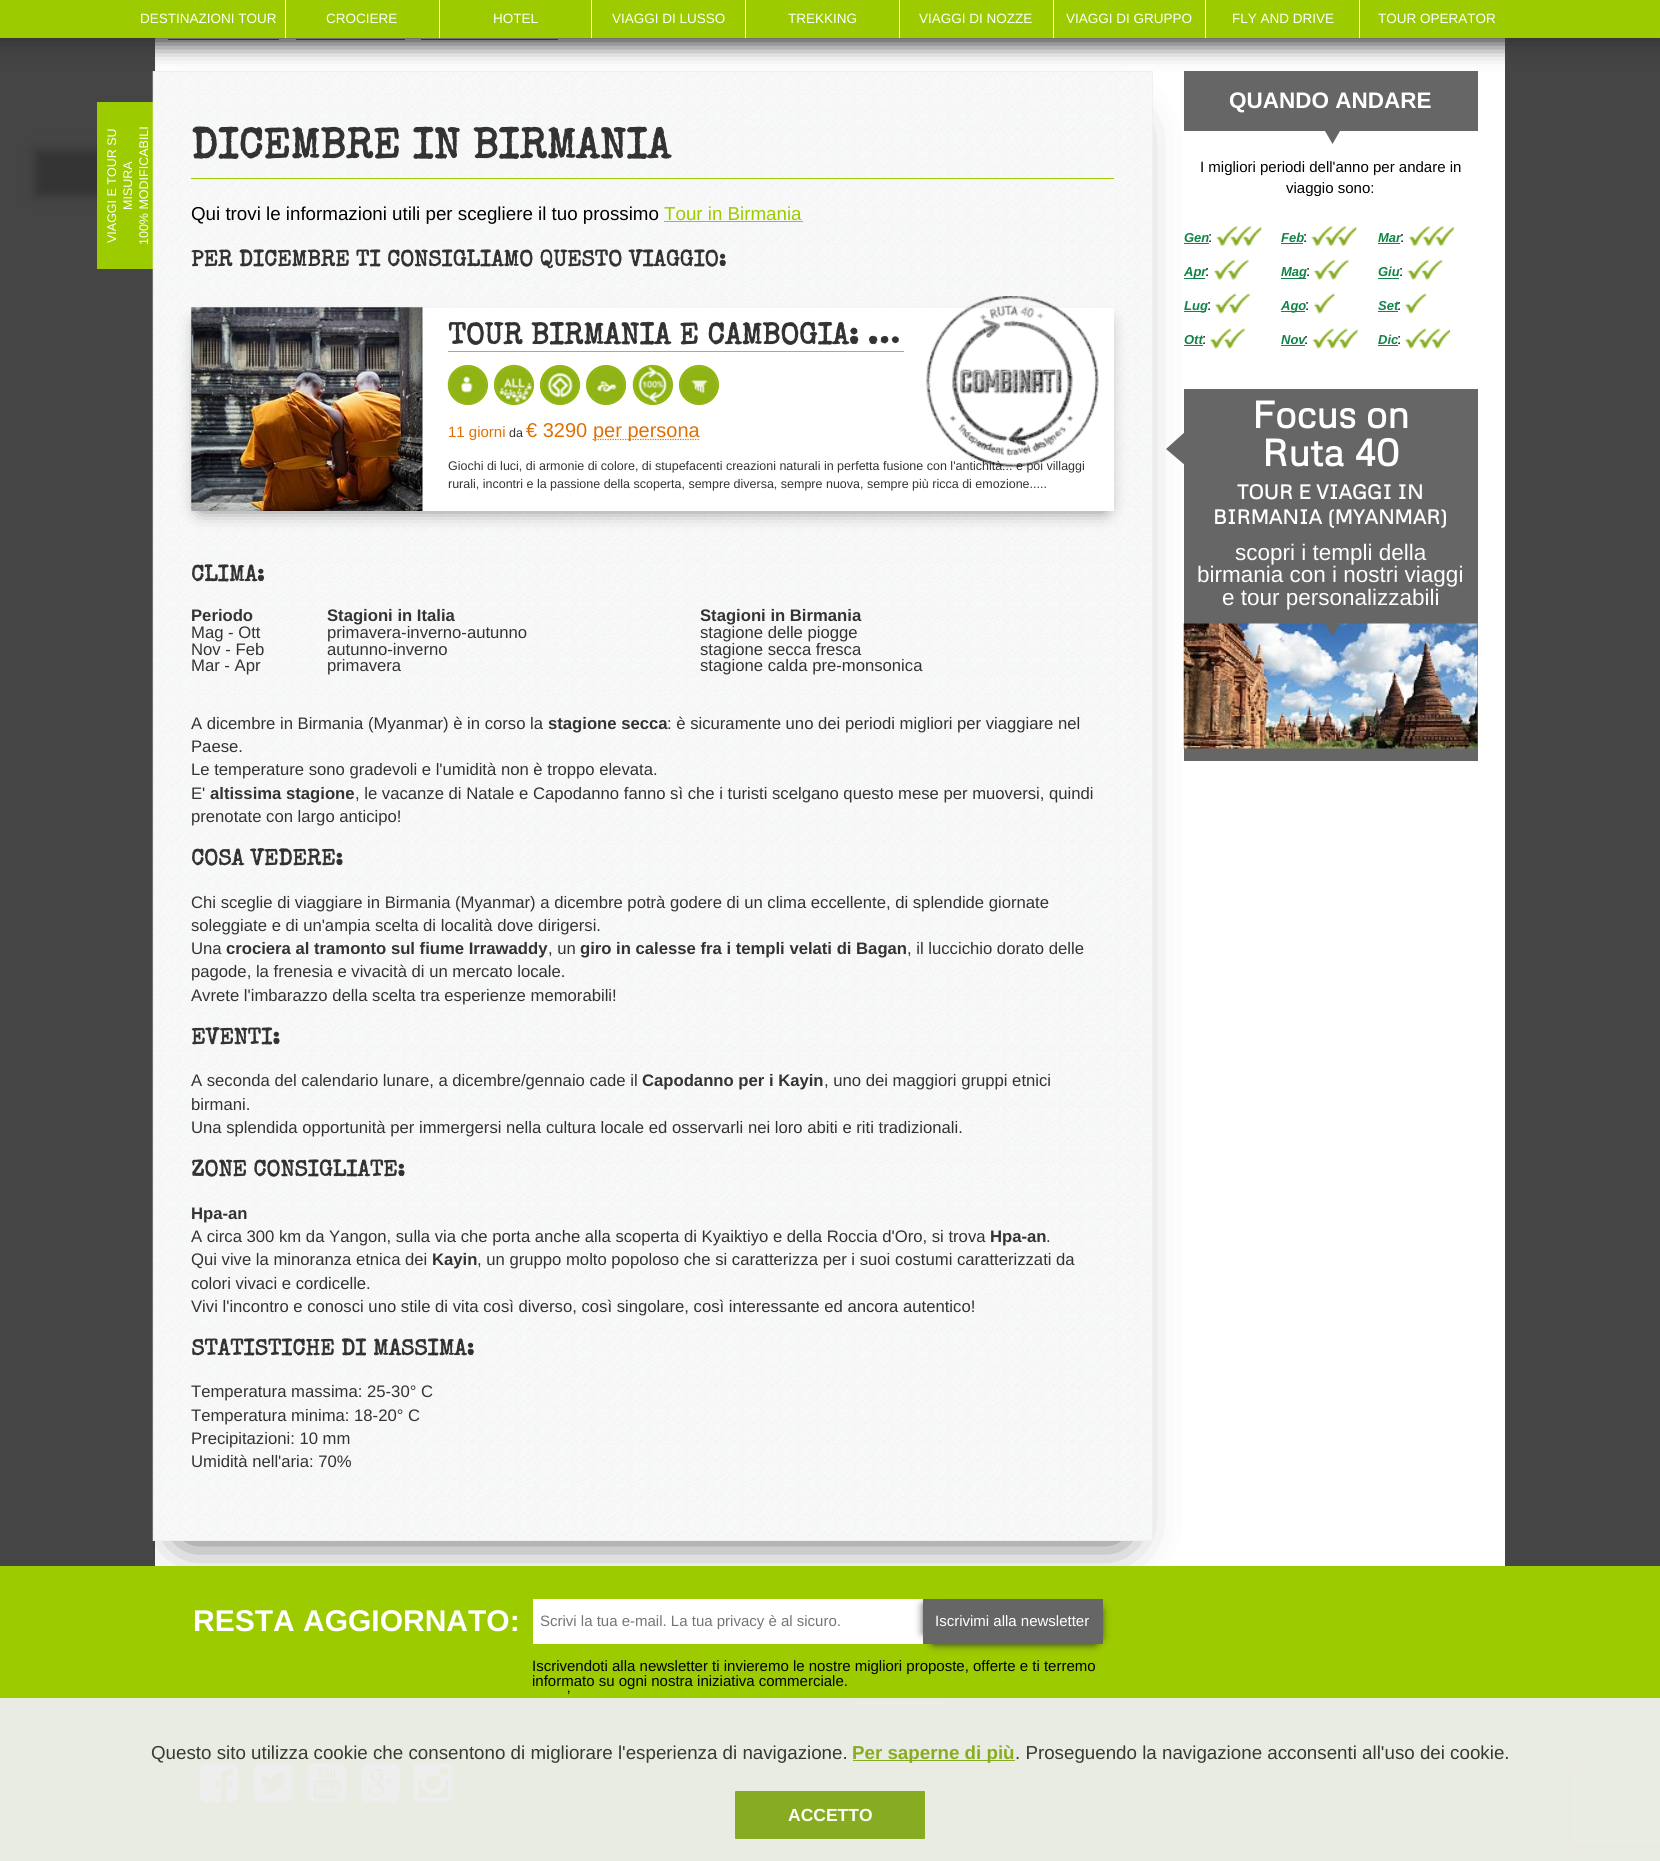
import math
import cairo

surface = cairo.ImageSurface(cairo.FORMAT_RGB24, 1660, 1861)
cr = cairo.Context(surface)
options = cairo.FontOptions()
options.set_hint_metrics(cairo.HINT_METRICS_OFF)
options.set_hint_style(cairo.HINT_STYLE_NONE)
cr.set_font_options(options)
cr.set_miter_limit(4)


def rgb(code):
    cr.set_source_rgb(*(v / 255 for v in bytes.fromhex(code[-6:])))


def rrect(x, y, w, h, r):
    cr.new_sub_path()
    for i, (u, v) in enumerate([(x + w - r, y + h - r), (x + r, y + h - r), (x + r, y + r), (x + w - r, y + r)]):
        cr.arc(u, v, r, i * math.pi / 2, (i + 1) * math.pi / 2)
    cr.close_path()


def soft_shadow(x, y, w, h, r, blur, alpha):
    cr.push_group_with_content(cairo.CONTENT_ALPHA)
    cr.set_operator(cairo.OPERATOR_SOURCE)
    for i in range(15, -16, -2):
        e = blur * i / 6
        if min(w, h) + 2 * e > 0:
            cr.set_source_rgba(0, 0, 0, alpha * math.erfc((i - 1) / 8.5) / 2)
            rrect(x - e, y - e, w + 2 * e, h + 2 * e, max(0, min(r + e + blur * .6, min(w, h) / 2 + e)))
            cr.fill()
    cr.mask(cr.pop_group())


def image(path, x, y, w, h):
    cr.save()
    cr.set_source_surface(cairo.ImageSurface.create_from_png(path), x, y)
    cr.rectangle(x, y, w, h)
    cr.fill()
    cr.restore()


rgb("#454545")
cr.paint()
for x, y, w, h, color in [
    (155, 38, 1350, 1528, "#ffffff"),
    (168, 39, 111, 1, "#333333"),
    (296, 39, 109, 1, "#333333"),
    (421, 39, 137, 1, "#333333"),
]:
    rgb(color)
    cr.rectangle(x, y, w, h)
    cr.fill()
rgb("#333333")
soft_shadow(35, 150, 158, 46, 0, 6, 1)
for x, y, w, h, color in [
    (97, 102, 56, 167, "#9ccb00"),
    (1184, 243, 25, 1, "#108447"),
    (1184, 278, 21, 1, "#108447"),
    (1184, 311, 22, 1, "#108447"),
    (1184, 345, 19, 1, "#108447"),
    (0, 1566, 1660, 295, "#9ccb00"),
    (533, 1599, 390, 45, "#ffffff"),
]:
    rgb(color)
    cr.rectangle(x, y, w, h)
    cr.fill()
cr.save()
cr.rectangle(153, 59, 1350, 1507)
cr.clip()
rgb("#333333")
soft_shadow(185, 129, 935, 1405, 0, 25, 1)
cr.restore()
image("img/1.png", 152, 71, 1000, 1470)
cr.rectangle(153.5, 71.5, 999, 1469)
rgb("#f0f0f0")
cr.set_line_width(1)
cr.stroke()
rgb("#666666")
cr.rectangle(1184, 71, 294, 60)
cr.fill()
rgb("#333333")
soft_shadow(-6, -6, 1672, 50, 0, 11, 1)
for x, y, w, h, color in [
    (0, 0, 1660, 38, "#9ccb00"),
    (285, 0, 1, 38, "#ffffff"),
    (439, 0, 1, 38, "#ffffff"),
    (591, 0, 1, 38, "#ffffff"),
    (745, 0, 1, 38, "#ffffff"),
    (899, 0, 1, 38, "#ffffff"),
    (1053, 0, 1, 38, "#ffffff"),
    (1205, 0, 1, 38, "#ffffff"),
    (1359, 0, 1, 38, "#ffffff"),
    (191, 178, 923, 1, "#9ccb00"),
    (664, 221, 139, 1, "#9ccb00"),
]:
    rgb(color)
    cr.rectangle(x, y, w, h)
    cr.fill()
rgb("#666666")
soft_shadow(200, 323, 905, 186, 0, 9.5, 1)
rgb("#f9f9f9")
soft_shadow(200, 305, 905, 186, 0, 6, 1)
rgb("#ffffff")
cr.rectangle(191, 308, 923, 203)
cr.fill()
image("img/2.png", 191, 307, 232, 204)
rgb("#9ccb00")
cr.rectangle(448, 351, 456, 1)
cr.fill()
rgb("#90b315")
cr.arc(468, 385, 20, 0, 2 * math.pi)
cr.fill()
image("img/4.png", 447, 364, 41, 41)
cr.arc(514, 385, 20, 0, 2 * math.pi)
cr.fill()
image("img/5.png", 493, 364, 41, 41)
cr.arc(560, 385, 20, 0, 2 * math.pi)
cr.fill()
image("img/6.png", 540, 364, 40, 41)
cr.arc(606, 385, 20, 0, 2 * math.pi)
cr.fill()
image("img/7.png", 586, 365, 41, 40)
cr.arc(653, 385, 20, 0, 2 * math.pi)
cr.fill()
image("img/8.png", 632, 364, 41, 41)
cr.arc(699, 385, 20, 0, 2 * math.pi)
cr.fill()
image("img/9.png", 678, 364, 41, 41)
cr.new_path()
cr.move_to(592.5, 439.5)
cr.line_to(699.5, 439.5)
rgb("#df7003")
cr.set_line_width(1.2)
cr.set_dash([1.25, 1.25])
cr.stroke()
rgb("#666666")
cr.new_path()
cr.move_to(1325, 131)
cr.line_to(1340, 131)
cr.line_to(1332.5, 144)
cr.close_path()
cr.fill()
image("img/10.png", 1216, 226, 46, 20)
rgb("#108447")
cr.rectangle(1281, 243, 22, 1)
cr.fill()
image("img/10.png", 1311, 226, 46, 20)
cr.rectangle(1378, 243, 22, 1)
cr.fill()
image("img/11.png", 1408, 226, 46, 20)
image("img/12.png", 1213, 259, 36, 21)
cr.rectangle(1281, 278, 25, 1)
cr.fill()
image("img/12.png", 1313, 259, 36, 21)
cr.rectangle(1378, 278, 21, 1)
cr.fill()
image("img/13.png", 1407, 259, 36, 21)
image("img/14.png", 1215, 293, 36, 21)
cr.rectangle(1281, 311, 24, 1)
cr.fill()
image("img/15.png", 1313, 293, 23, 21)
cr.rectangle(1378, 311, 20, 1)
cr.fill()
image("img/16.png", 1405, 293, 22, 21)
image("img/14.png", 1210, 328, 36, 21)
cr.rectangle(1281, 345, 24, 1)
cr.fill()
image("img/17.png", 1312, 328, 46, 21)
cr.rectangle(1378, 345, 20, 1)
cr.fill()
image("img/18.png", 1405, 328, 45, 21)
rgb("#666666")
cr.rectangle(1184, 389, 294, 372)
cr.fill()
cr.new_path()
cr.move_to(1186, 431)
cr.line_to(1186, 466)
cr.line_to(1166, 449)
cr.close_path()
cr.fill()
image("img/19.png", 1183, 623, 295, 126)
cr.new_path()
cr.move_to(1325, 624)
cr.line_to(1340, 624)
cr.line_to(1332.5, 636)
cr.close_path()
cr.fill()
rgb("#333333")
soft_shadow(933, 1616, 162, 28, 0, 4.5, 1)
cr.save()
cr.rectangle(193, 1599, 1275, 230)
cr.clip()
soft_shadow(924, 1605, 162, 28, 0, 4.5, 1)
soft_shadow(934, 1601, 162, 28, 0, 4.5, 1)
cr.restore()
soft_shadow(939, 1610, 162, 28, 0, 4.5, 1)
rgb("#666666")
cr.rectangle(923, 1599, 180, 45)
cr.fill()
rgb("#ffffff")
cr.rectangle(853, 1703, 91, 1)
cr.fill()
cr.save()
cr.set_fill_rule(cairo.FILL_RULE_EVEN_ODD)
cr.new_path()
cr.move_to(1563, 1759)
cr.line_to(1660, 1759)
cr.line_to(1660, 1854)
cr.line_to(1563, 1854)
cr.close_path()
cr.move_to(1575.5, 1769)
cr.line_to(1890.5, 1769)
cr.curve_to(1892, 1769, 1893, 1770, 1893, 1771.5)
cr.line_to(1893, 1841.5)
cr.curve_to(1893, 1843, 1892, 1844, 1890.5, 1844)
cr.line_to(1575.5, 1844)
cr.curve_to(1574, 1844, 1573, 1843, 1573, 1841.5)
cr.line_to(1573, 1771.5)
cr.curve_to(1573, 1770, 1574, 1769, 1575.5, 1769)
cr.close_path()
cr.clip()
rgb("#808080")
soft_shadow(1573, 1769, 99, 75, 2.5, 3, 1)
cr.restore()
image("img/20.png", 200, 1763, 39, 39)
image("img/21.png", 253, 1763, 40, 39)
image("img/22.png", 307, 1763, 40, 39)
image("img/23.png", 361, 1763, 39, 39)
image("img/24.png", 413, 1763, 40, 39)
cr.set_source_rgba(0.933, 0.933, 0.933, 0.95)
cr.rectangle(0, 1698, 1660, 163)
cr.fill()
rgb("#88ac21")
cr.rectangle(853, 1760, 162, 1)
cr.fill()
rrect(735, 1791, 190, 48, 1)
cr.fill()
cr.select_font_face("Liberation Sans")
cr.set_font_size(13.5)
rgb("#ffffff")
for x, y, s in [
    (140, 23, "DESTINAZIONI TOUR"),
    (326, 23, "CROCIERE"),
    (493, 23, "HOTEL"),
    (612, 23, "VIAGGI DI LUSSO"),
    (788, 23, "TREKKING"),
    (919, 23, "VIAGGI DI NOZZE"),
    (1066, 23, "VIAGGI DI GRUPPO"),
    (1232, 23, "FLY AND DRIVE"),
    (1378, 23, "TOUR OPERATOR"),
]:
    cr.move_to(x, y)
    cr.show_text(s)
cr.set_font_size(12.5)
cr.save()
cr.translate(116, 243)
cr.rotate(-90 * math.pi / 180)
cr.move_to(0, 0)
cr.show_text("VIAGGI E TOUR SU")
cr.restore()
cr.save()
cr.translate(132, 210)
cr.rotate(-90 * math.pi / 180)
cr.move_to(0, 0)
cr.show_text("MISURA")
cr.restore()
cr.save()
cr.translate(148, 245)
cr.rotate(-90 * math.pi / 180)
cr.move_to(0, 0)
cr.show_text("100% MODIFICABILI")
cr.restore()
cr.select_font_face("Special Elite", cairo.FONT_SLANT_NORMAL, cairo.FONT_WEIGHT_BOLD)
cr.set_font_size(42.5)
rgb("#333333")
cr.move_to(191, 158)
cr.show_text("DICEMBRE IN BIRMANIA")
cr.select_font_face("Liberation Sans")
cr.set_font_size(18.75)
rgb("#000000")
cr.move_to(191, 220)
cr.show_text("Qui trovi le informazioni utili per scegliere il tuo prossimo")
rgb("#9ccb00")
cr.move_to(664, 220)
cr.show_text("Tour in Birmania")
cr.select_font_face("Special Elite", cairo.FONT_SLANT_NORMAL, cairo.FONT_WEIGHT_BOLD)
cr.set_font_size(22.5)
rgb("#333333")
cr.move_to(191, 266)
cr.show_text("PER DICEMBRE TI CONSIGLIAMO QUESTO VIAGGIO:")
cr.set_font_size(30)
cr.move_to(448, 344)
cr.show_text("TOUR BIRMANIA E CAMBOGIA: …")
cr.select_font_face("Liberation Sans")
cr.set_font_size(15)
rgb("#df7003")
cr.move_to(448, 437)
cr.show_text("11 giorni")
cr.set_font_size(12.5)
rgb("#333333")
cr.move_to(509, 437)
cr.show_text("da")
cr.set_font_size(20)
rgb("#df7003")
cr.move_to(526, 437)
cr.show_text("€ 3290")
cr.move_to(593, 437)
cr.show_text("per persona")
cr.set_font_size(12.5)
rgb("#333333")
cr.move_to(448, 470)
cr.show_text("Giochi di luci, di armonie di colore, di stupefacenti creazioni naturali in perfetta fusione con l'antichità... e poi villaggi")
image("img/3.png", 926, 296, 173, 172)
cr.move_to(448, 488)
cr.show_text("rurali, incontri e la passione della scoperta, sempre diversa, sempre nuova, sempre più ricca di emozione.....")
cr.select_font_face("Special Elite", cairo.FONT_SLANT_NORMAL, cairo.FONT_WEIGHT_BOLD)
cr.set_font_size(22.5)
cr.move_to(191, 581)
cr.show_text("CLIMA:")
cr.select_font_face("Liberation Sans", cairo.FONT_SLANT_NORMAL, cairo.FONT_WEIGHT_BOLD)
cr.set_font_size(16.67)
for x, y, s in [
    (191, 621, "Periodo"),
    (327, 621, "Stagioni in Italia"),
    (700, 621, "Stagioni in Birmania"),
]:
    cr.move_to(x, y)
    cr.show_text(s)
cr.select_font_face("Liberation Sans")
for x, y, s in [
    (191, 638, "Mag - Ott"),
    (327, 638, "primavera-inverno-autunno"),
    (700, 638, "stagione delle piogge"),
    (191, 655, "Nov - Feb"),
    (327, 655, "autunno-inverno"),
    (700, 655, "stagione secca fresca"),
    (191, 671, "Mar - Apr"),
    (327, 671, "primavera"),
    (700, 671, "stagione calda pre-monsonica"),
    (191, 729, "A dicembre in Birmania (Myanmar) è in corso la"),
]:
    cr.move_to(x, y)
    cr.show_text(s)
cr.select_font_face("Liberation Sans", cairo.FONT_SLANT_NORMAL, cairo.FONT_WEIGHT_BOLD)
cr.move_to(548, 729)
cr.show_text("stagione secca")
cr.select_font_face("Liberation Sans")
for x, y, s in [
    (667, 729, ": è sicuramente uno dei periodi migliori per viaggiare nel"),
    (191, 752, "Paese."),
    (191, 775, "Le temperature sono gradevoli e l'umidità non è troppo elevata."),
    (191, 799, "E'"),
]:
    cr.move_to(x, y)
    cr.show_text(s)
cr.select_font_face("Liberation Sans", cairo.FONT_SLANT_NORMAL, cairo.FONT_WEIGHT_BOLD)
cr.move_to(210, 799)
cr.show_text("altissima stagione")
cr.select_font_face("Liberation Sans")
cr.move_to(355, 799)
cr.show_text(", le vacanze di Natale e Capodanno fanno sì che i turisti scelgano questo mese per muoversi, quindi")
cr.move_to(191, 822)
cr.show_text("prenotate con largo anticipo!")
cr.select_font_face("Special Elite", cairo.FONT_SLANT_NORMAL, cairo.FONT_WEIGHT_BOLD)
cr.set_font_size(22.5)
cr.move_to(191, 865)
cr.show_text("COSA VEDERE:")
cr.select_font_face("Liberation Sans")
cr.set_font_size(16.67)
for x, y, s in [
    (191, 908, "Chi sceglie di viaggiare in Birmania (Myanmar) a dicembre potrà godere di un clima eccellente, di splendide giornate"),
    (191, 931, "soleggiate e di un'ampia scelta di località dove dirigersi."),
    (191, 954, "Una"),
]:
    cr.move_to(x, y)
    cr.show_text(s)
cr.select_font_face("Liberation Sans", cairo.FONT_SLANT_NORMAL, cairo.FONT_WEIGHT_BOLD)
cr.move_to(226, 954)
cr.show_text("crociera al tramonto sul fiume Irrawaddy")
cr.select_font_face("Liberation Sans")
cr.move_to(548, 954)
cr.show_text(", un")
cr.select_font_face("Liberation Sans", cairo.FONT_SLANT_NORMAL, cairo.FONT_WEIGHT_BOLD)
cr.move_to(580, 954)
cr.show_text("giro in calesse fra i templi velati di Bagan")
cr.select_font_face("Liberation Sans")
for x, y, s in [
    (907, 954, ", il luccichio dorato delle"),
    (191, 977, "pagode, la frenesia e vivacità di un mercato locale."),
    (191, 1001, "Avrete l'imbarazzo della scelta tra esperienze memorabili!"),
]:
    cr.move_to(x, y)
    cr.show_text(s)
cr.select_font_face("Special Elite", cairo.FONT_SLANT_NORMAL, cairo.FONT_WEIGHT_BOLD)
cr.set_font_size(22.5)
cr.move_to(191, 1044)
cr.show_text("EVENTI:")
cr.select_font_face("Liberation Sans")
cr.set_font_size(16.67)
cr.move_to(191, 1086)
cr.show_text("A seconda del calendario lunare, a dicembre/gennaio cade il")
cr.select_font_face("Liberation Sans", cairo.FONT_SLANT_NORMAL, cairo.FONT_WEIGHT_BOLD)
cr.move_to(642, 1086)
cr.show_text("Capodanno per i Kayin")
cr.select_font_face("Liberation Sans")
for x, y, s in [
    (824, 1086, ", uno dei maggiori gruppi etnici"),
    (191, 1110, "birmani."),
    (191, 1133, "Una splendida opportunità per immergersi nella cultura locale ed osservarli nei loro abiti e riti tradizionali."),
]:
    cr.move_to(x, y)
    cr.show_text(s)
cr.select_font_face("Special Elite", cairo.FONT_SLANT_NORMAL, cairo.FONT_WEIGHT_BOLD)
cr.set_font_size(22.5)
cr.move_to(191, 1176)
cr.show_text("ZONE CONSIGLIATE:")
cr.select_font_face("Liberation Sans", cairo.FONT_SLANT_NORMAL, cairo.FONT_WEIGHT_BOLD)
cr.set_font_size(16.67)
cr.move_to(191, 1219)
cr.show_text("Hpa-an")
cr.select_font_face("Liberation Sans")
cr.move_to(191, 1242)
cr.show_text("A circa 300 km da Yangon, sulla via che porta anche alla scoperta di Kyaiktiyo e della Roccia d'Oro, si trova")
cr.select_font_face("Liberation Sans", cairo.FONT_SLANT_NORMAL, cairo.FONT_WEIGHT_BOLD)
cr.move_to(990, 1242)
cr.show_text("Hpa-an")
cr.select_font_face("Liberation Sans")
cr.move_to(1046, 1242)
cr.show_text(".")
cr.move_to(191, 1265)
cr.show_text("Qui vive la minoranza etnica dei")
cr.select_font_face("Liberation Sans", cairo.FONT_SLANT_NORMAL, cairo.FONT_WEIGHT_BOLD)
cr.move_to(432, 1265)
cr.show_text("Kayin")
cr.select_font_face("Liberation Sans")
for x, y, s in [
    (477, 1265, ", un gruppo molto popoloso che si caratterizza per i suoi costumi caratterizzati da"),
    (191, 1289, "colori vivaci e cordicelle."),
    (191, 1312, "Vivi l'incontro e conosci uno stile di vita così diverso, così singolare, così interessante ed ancora autentico!"),
]:
    cr.move_to(x, y)
    cr.show_text(s)
cr.select_font_face("Special Elite", cairo.FONT_SLANT_NORMAL, cairo.FONT_WEIGHT_BOLD)
cr.set_font_size(22.5)
cr.move_to(191, 1355)
cr.show_text("STATISTICHE DI MASSIMA:")
cr.select_font_face("Liberation Sans")
cr.set_font_size(16.67)
for x, y, s in [
    (191, 1397, "Temperatura massima: 25-30° C"),
    (191, 1421, "Temperatura minima: 18-20° C"),
    (191, 1444, "Precipitazioni: 10 mm"),
    (191, 1467, "Umidità nell'aria: 70%"),
]:
    cr.move_to(x, y)
    cr.show_text(s)
cr.select_font_face("Liberation Sans", cairo.FONT_SLANT_NORMAL, cairo.FONT_WEIGHT_BOLD)
cr.set_font_size(22.5)
rgb("#ffffff")
cr.move_to(1229, 108)
cr.show_text("QUANDO ANDARE")
cr.select_font_face("Liberation Sans")
cr.set_font_size(15)
rgb("#000000")
cr.move_to(1200, 172)
cr.show_text("I migliori periodi dell'anno per andare in")
cr.move_to(1286, 193)
cr.show_text("viaggio sono:")
cr.select_font_face("Liberation Sans", cairo.FONT_SLANT_ITALIC, cairo.FONT_WEIGHT_BOLD)
cr.set_font_size(13)
rgb("#108447")
cr.move_to(1184, 242)
cr.show_text("Gen")
cr.select_font_face("Liberation Sans")
cr.set_font_size(15)
rgb("#000000")
cr.move_to(1208, 242)
cr.show_text(":")
cr.select_font_face("Liberation Sans", cairo.FONT_SLANT_ITALIC, cairo.FONT_WEIGHT_BOLD)
cr.set_font_size(13)
rgb("#108447")
cr.move_to(1281, 242)
cr.show_text("Feb")
cr.select_font_face("Liberation Sans")
cr.set_font_size(15)
rgb("#000000")
cr.move_to(1303, 242)
cr.show_text(":")
cr.select_font_face("Liberation Sans", cairo.FONT_SLANT_ITALIC, cairo.FONT_WEIGHT_BOLD)
cr.set_font_size(13)
rgb("#108447")
cr.move_to(1378, 242)
cr.show_text("Mar")
cr.select_font_face("Liberation Sans")
cr.set_font_size(15)
rgb("#000000")
cr.move_to(1400, 242)
cr.show_text(":")
cr.select_font_face("Liberation Sans", cairo.FONT_SLANT_ITALIC, cairo.FONT_WEIGHT_BOLD)
cr.set_font_size(13)
rgb("#108447")
cr.move_to(1184, 276)
cr.show_text("Apr")
cr.select_font_face("Liberation Sans")
cr.set_font_size(15)
rgb("#000000")
cr.move_to(1205, 276)
cr.show_text(":")
cr.select_font_face("Liberation Sans", cairo.FONT_SLANT_ITALIC, cairo.FONT_WEIGHT_BOLD)
cr.set_font_size(13)
rgb("#108447")
cr.move_to(1281, 276)
cr.show_text("Mag")
cr.select_font_face("Liberation Sans")
cr.set_font_size(15)
rgb("#000000")
cr.move_to(1306, 276)
cr.show_text(":")
cr.select_font_face("Liberation Sans", cairo.FONT_SLANT_ITALIC, cairo.FONT_WEIGHT_BOLD)
cr.set_font_size(13)
rgb("#108447")
cr.move_to(1378, 276)
cr.show_text("Giu")
cr.select_font_face("Liberation Sans")
cr.set_font_size(15)
rgb("#000000")
cr.move_to(1399, 276)
cr.show_text(":")
cr.select_font_face("Liberation Sans", cairo.FONT_SLANT_ITALIC, cairo.FONT_WEIGHT_BOLD)
cr.set_font_size(13)
rgb("#108447")
cr.move_to(1184, 310)
cr.show_text("Lug")
cr.select_font_face("Liberation Sans")
cr.set_font_size(15)
rgb("#000000")
cr.move_to(1207, 310)
cr.show_text(":")
cr.select_font_face("Liberation Sans", cairo.FONT_SLANT_ITALIC, cairo.FONT_WEIGHT_BOLD)
cr.set_font_size(13)
rgb("#108447")
cr.move_to(1281, 310)
cr.show_text("Ago")
cr.select_font_face("Liberation Sans")
cr.set_font_size(15)
rgb("#000000")
cr.move_to(1305, 310)
cr.show_text(":")
cr.select_font_face("Liberation Sans", cairo.FONT_SLANT_ITALIC, cairo.FONT_WEIGHT_BOLD)
cr.set_font_size(13)
rgb("#108447")
cr.move_to(1378, 310)
cr.show_text("Set")
cr.select_font_face("Liberation Sans")
cr.set_font_size(15)
rgb("#000000")
cr.move_to(1397, 310)
cr.show_text(":")
cr.select_font_face("Liberation Sans", cairo.FONT_SLANT_ITALIC, cairo.FONT_WEIGHT_BOLD)
cr.set_font_size(13)
rgb("#108447")
cr.move_to(1184, 344)
cr.show_text("Ott")
cr.select_font_face("Liberation Sans")
cr.set_font_size(15)
rgb("#000000")
cr.move_to(1202, 344)
cr.show_text(":")
cr.select_font_face("Liberation Sans", cairo.FONT_SLANT_ITALIC, cairo.FONT_WEIGHT_BOLD)
cr.set_font_size(13)
rgb("#108447")
cr.move_to(1281, 344)
cr.show_text("Nov")
cr.select_font_face("Liberation Sans")
cr.set_font_size(15)
rgb("#000000")
cr.move_to(1304, 344)
cr.show_text(":")
cr.select_font_face("Liberation Sans", cairo.FONT_SLANT_ITALIC, cairo.FONT_WEIGHT_BOLD)
cr.set_font_size(13)
rgb("#108447")
cr.move_to(1378, 344)
cr.show_text("Dic")
cr.select_font_face("Liberation Sans")
cr.set_font_size(15)
rgb("#000000")
cr.move_to(1397, 344)
cr.show_text(":")
cr.select_font_face("Metrophobic", cairo.FONT_SLANT_NORMAL, cairo.FONT_WEIGHT_BOLD)
cr.set_font_size(37.5)
rgb("#ffffff")
cr.move_to(1252, 428)
cr.show_text("Focus on")
cr.move_to(1262, 466)
cr.show_text("Ruta 40")
cr.set_font_size(20)
cr.move_to(1237, 499)
cr.show_text("TOUR E VIAGGI IN")
cr.move_to(1213, 524)
cr.show_text("BIRMANIA (MYANMAR)")
cr.select_font_face("Liberation Sans")
cr.set_font_size(22.5)
for x, y, s in [
    (1235, 560, "scopri i templi della"),
    (1197, 582, "birmania con i nostri viaggi"),
    (1222, 605, "e tour personalizzabili"),
]:
    cr.move_to(x, y)
    cr.show_text(s)
cr.select_font_face("Liberation Sans", cairo.FONT_SLANT_NORMAL, cairo.FONT_WEIGHT_BOLD)
cr.set_font_size(30)
cr.move_to(193, 1631)
cr.show_text("RESTA AGGIORNATO:")
cr.select_font_face("Liberation Sans")
cr.set_font_size(15)
rgb("#757575")
cr.move_to(540, 1626)
cr.show_text("Scrivi la tua e-mail. La tua privacy è al sicuro.")
rgb("#ffffff")
cr.move_to(935, 1626)
cr.show_text("Iscrivimi alla newsletter")
rgb("#000000")
for x, y, s in [
    (532, 1671, "Iscrivendoti alla newsletter ti invieremo le nostre migliori proposte, offerte e ti terremo"),
    (532, 1686, "informato su ogni nostra iniziativa commerciale."),
    (567, 1701, "’"),
]:
    cr.move_to(x, y)
    cr.show_text(s)
cr.set_font_size(18.75)
rgb("#383a31")
cr.move_to(151, 1759)
cr.show_text("Questo sito utilizza cookie che consentono di migliorare l'esperienza di navigazione.")
cr.select_font_face("Liberation Sans", cairo.FONT_SLANT_NORMAL, cairo.FONT_WEIGHT_BOLD)
rgb("#88ac21")
cr.move_to(852, 1759)
cr.show_text("Per saperne di più")
cr.select_font_face("Liberation Sans")
rgb("#383a31")
cr.move_to(1015, 1759)
cr.show_text(". Proseguendo la navigazione acconsenti all'uso dei cookie.")
cr.select_font_face("Liberation Sans", cairo.FONT_SLANT_NORMAL, cairo.FONT_WEIGHT_BOLD)
cr.set_font_size(17.5)
rgb("#fbfdf4")
cr.move_to(788, 1821)
cr.show_text("ACCETTO")
surface.write_to_png("page.png")
